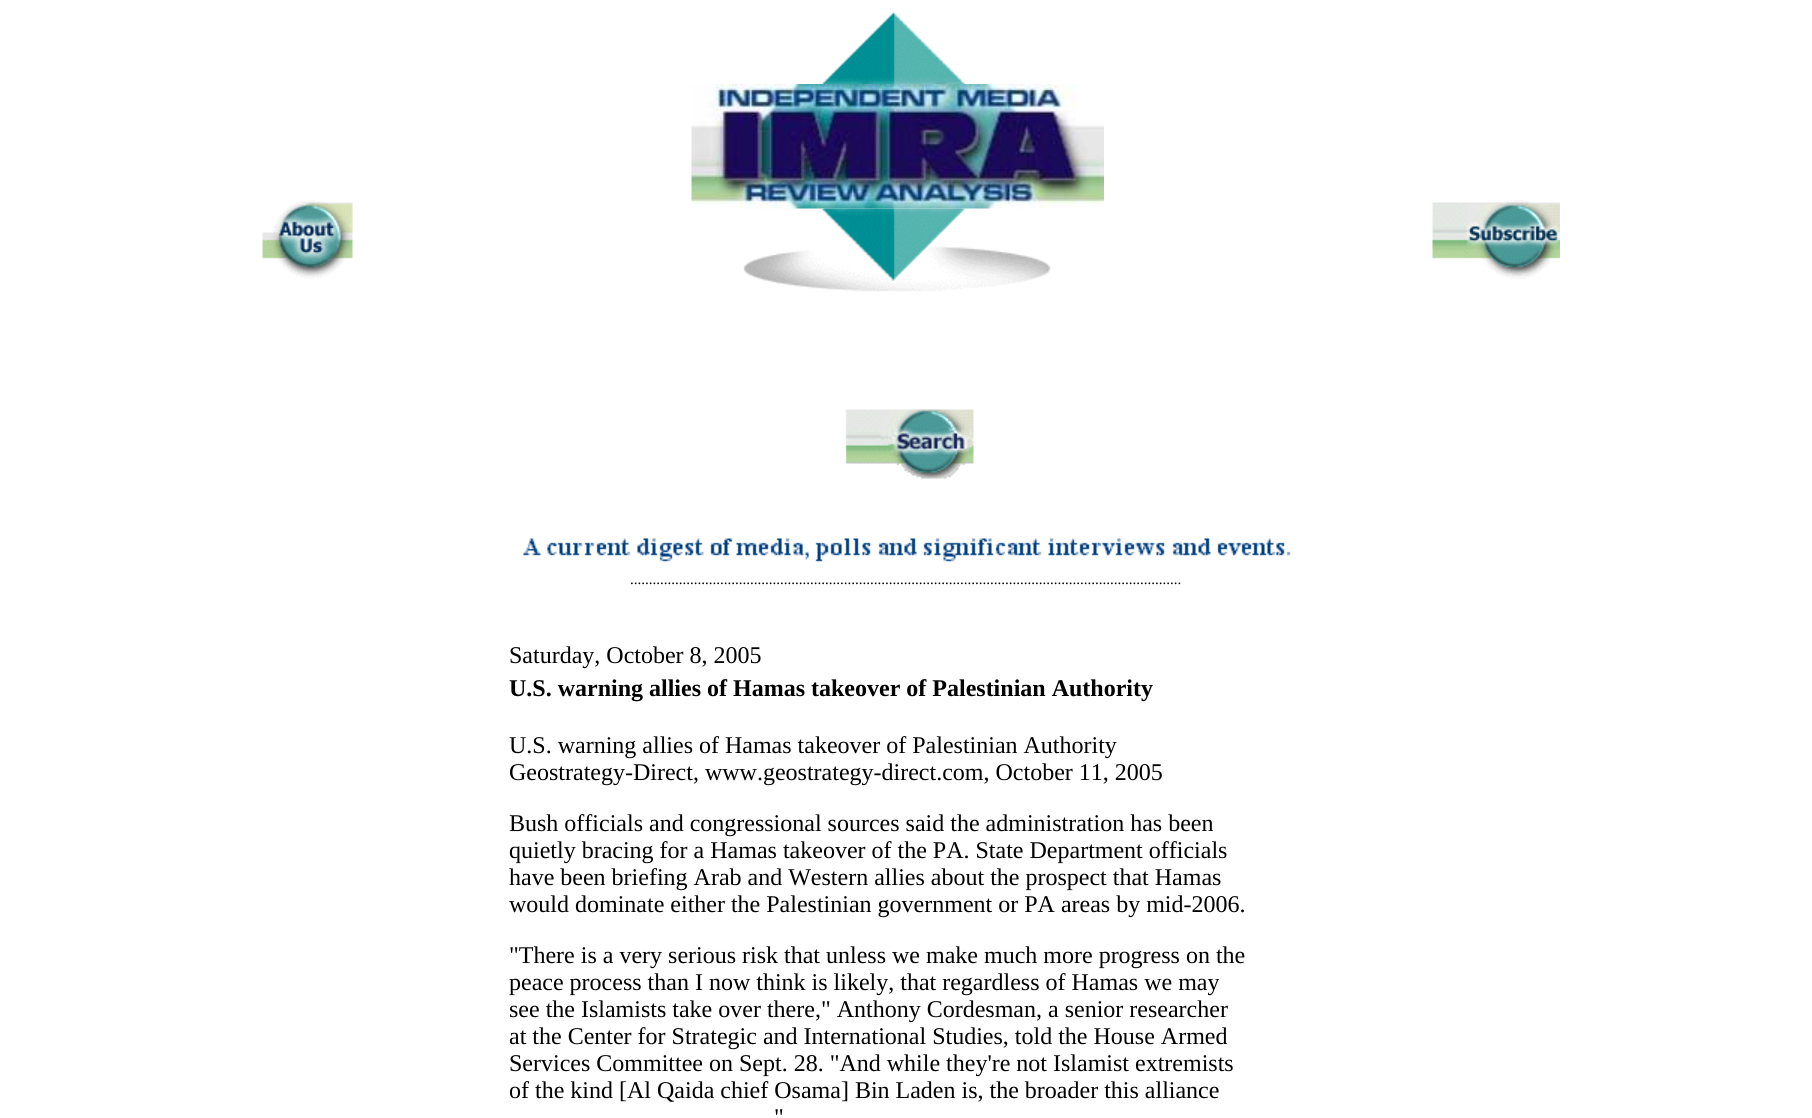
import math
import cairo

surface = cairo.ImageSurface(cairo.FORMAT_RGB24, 1812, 1118)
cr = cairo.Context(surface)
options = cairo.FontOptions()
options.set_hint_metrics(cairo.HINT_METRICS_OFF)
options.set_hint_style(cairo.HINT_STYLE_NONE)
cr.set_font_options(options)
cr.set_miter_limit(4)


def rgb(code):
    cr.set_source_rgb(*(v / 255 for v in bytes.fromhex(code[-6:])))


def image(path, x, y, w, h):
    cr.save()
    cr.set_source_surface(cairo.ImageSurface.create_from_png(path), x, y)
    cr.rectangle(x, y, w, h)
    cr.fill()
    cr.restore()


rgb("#ffffff")
cr.paint()
image("img/1.png", 262, 200, 91, 79)
image("img/2.png", 821, 12, 145, 72)
image("img/3.png", 691, 84, 413, 125)
image("img/4.png", 743, 208, 308, 84)
image("img/5.png", 1432, 200, 128, 79)
image("img/6.png", 845, 409, 129, 70)
image("img/7.png", 523, 538, 768, 24)
cr.select_font_face("Liberation Serif")
cr.set_font_size(15)
rgb("#000000")
cr.move_to(630, 584)
cr.show_text("...................................................................................................................................................")
cr.set_font_size(24)
cr.move_to(509, 663)
cr.show_text("Saturday, October 8, 2005")
cr.select_font_face("Liberation Serif", cairo.FONT_SLANT_NORMAL, cairo.FONT_WEIGHT_BOLD)
cr.move_to(509, 696)
cr.show_text("U.S. warning allies of Hamas takeover of Palestinian Authority")
cr.select_font_face("Liberation Serif")
for x, y, s in [
    (509, 753, "U.S. warning allies of Hamas takeover of Palestinian Authority"),
    (509, 780, "Geostrategy-Direct, www.geostrategy-direct.com, October 11, 2005"),
    (509, 831, "Bush officials and congressional sources said the administration has been"),
    (509, 858, "quietly bracing for a Hamas takeover of the PA. State Department officials"),
    (509, 885, "have been briefing Arab and Western allies about the prospect that Hamas"),
    (509, 912, "would dominate either the Palestinian government or PA areas by mid-2006."),
    (509, 963, "\"There is a very serious risk that unless we make much more progress on the"),
    (509, 990, "peace process than I now think is likely, that regardless of Hamas we may"),
    (509, 1017, "see the Islamists take over there,\" Anthony Cordesman, a senior researcher"),
    (509, 1044, "at the Center for Strategic and International Studies, told the House Armed"),
    (509, 1071, "Services Committee on Sept. 28. \"And while they're not Islamist extremists"),
    (509, 1098, "of the kind [Al Qaida chief Osama] Bin Laden is, the broader this alliance"),
    (774, 1125, "\""),
]:
    cr.move_to(x, y)
    cr.show_text(s)
surface.write_to_png("page.png")
